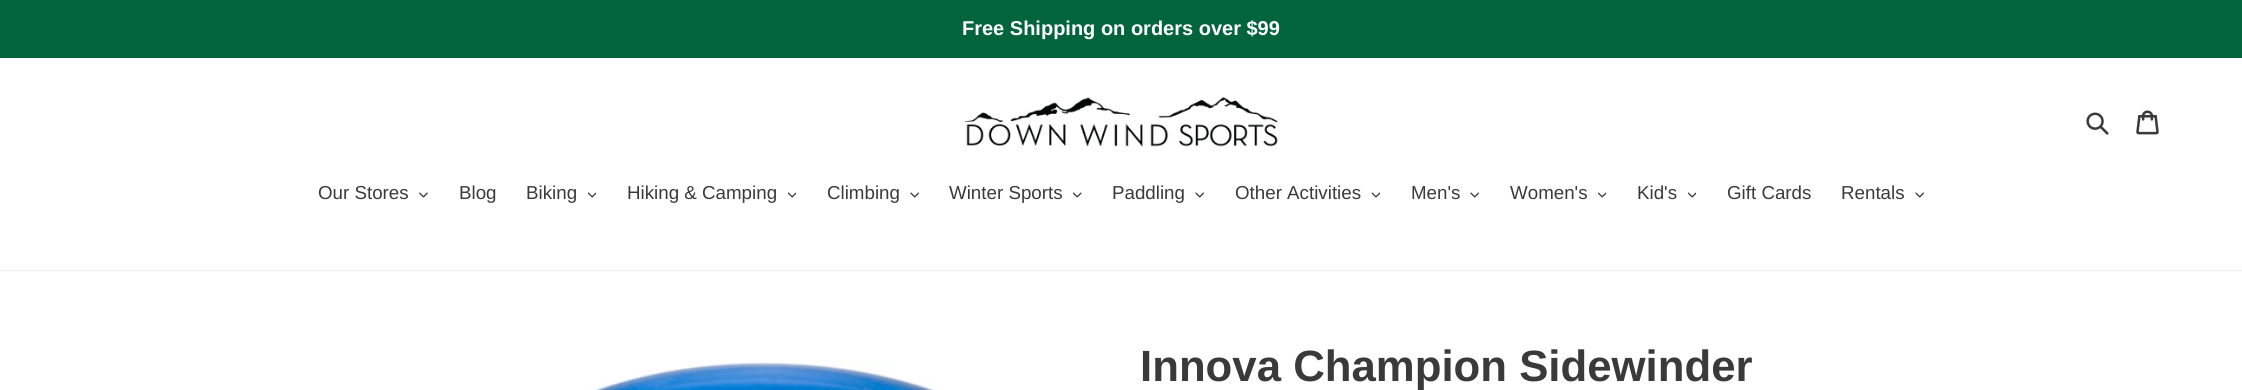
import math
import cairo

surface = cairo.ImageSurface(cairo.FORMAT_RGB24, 2242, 390)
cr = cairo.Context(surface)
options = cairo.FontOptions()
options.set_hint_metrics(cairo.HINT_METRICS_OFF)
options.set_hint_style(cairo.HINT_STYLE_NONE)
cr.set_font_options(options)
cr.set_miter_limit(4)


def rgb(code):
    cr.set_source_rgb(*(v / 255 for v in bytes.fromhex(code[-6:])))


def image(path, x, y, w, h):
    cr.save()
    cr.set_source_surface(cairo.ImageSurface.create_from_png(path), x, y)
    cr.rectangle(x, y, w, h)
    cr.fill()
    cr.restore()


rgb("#ffffff")
cr.paint()
rgb("#01643c")
cr.rectangle(0, 0, 2242, 58)
cr.fill()
image("img/1.png", 965, 97, 313, 50)
image("img/2.png", 2086, 112, 23, 23)
image("img/3.png", 2136, 110, 23, 25)
rgb("#ebebeb")
cr.rectangle(0, 270, 2242, 1)
cr.fill()
image("img/4.png", 419, 192, 9, 6)
image("img/5.png", 588, 192, 8, 6)
image("img/5.png", 788, 192, 8, 6)
image("img/6.png", 910, 192, 9, 6)
image("img/7.png", 1073, 192, 9, 6)
image("img/6.png", 1195, 192, 9, 6)
image("img/8.png", 1371, 192, 9, 6)
image("img/6.png", 1470, 192, 9, 6)
image("img/5.png", 1598, 192, 8, 6)
image("img/5.png", 1688, 192, 8, 6)
image("img/6.png", 1915, 192, 9, 6)
image("img/9.png", 588, 360, 348, 30)
cr.select_font_face("Liberation Sans", cairo.FONT_SLANT_NORMAL, cairo.FONT_WEIGHT_BOLD)
cr.set_font_size(20)
rgb("#ffffff")
cr.move_to(962, 35)
cr.show_text("Free Shipping on orders over $99")
cr.select_font_face("Liberation Sans")
cr.set_font_size(18.75)
rgb("#3a3a3a")
for x, y, s in [
    (318, 199, "Our Stores"),
    (459, 199, "Blog"),
    (526, 199, "Biking"),
    (627, 199, "Hiking & Camping"),
    (827, 199, "Climbing"),
    (949, 199, "Winter Sports"),
    (1112, 199, "Paddling"),
    (1235, 199, "Other Activities"),
    (1411, 199, "Men's"),
    (1510, 199, "Women's"),
    (1637, 199, "Kid's"),
    (1727, 199, "Gift Cards"),
    (1841, 199, "Rentals"),
]:
    cr.move_to(x, y)
    cr.show_text(s)
cr.select_font_face("Liberation Sans", cairo.FONT_SLANT_NORMAL, cairo.FONT_WEIGHT_BOLD)
cr.set_font_size(43.75)
cr.move_to(1140, 381)
cr.show_text("Innova Champion Sidewinder")
surface.write_to_png("page.png")
